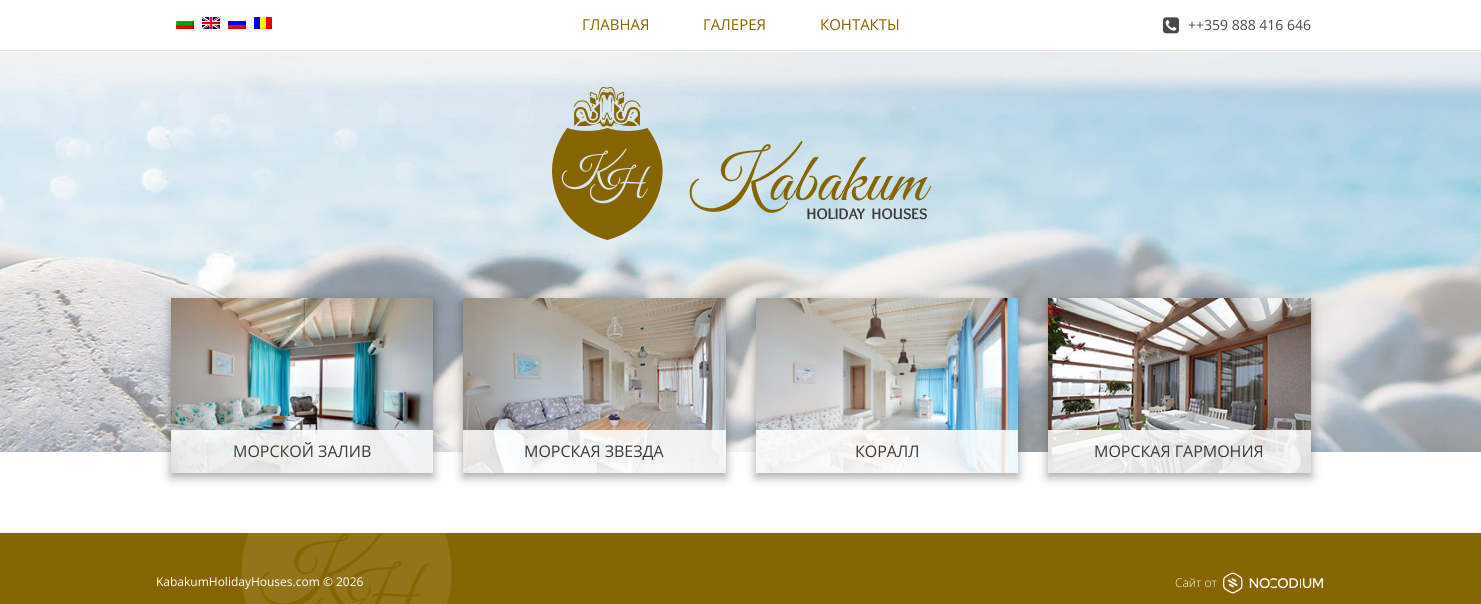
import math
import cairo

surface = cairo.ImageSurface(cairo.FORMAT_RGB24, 1481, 604)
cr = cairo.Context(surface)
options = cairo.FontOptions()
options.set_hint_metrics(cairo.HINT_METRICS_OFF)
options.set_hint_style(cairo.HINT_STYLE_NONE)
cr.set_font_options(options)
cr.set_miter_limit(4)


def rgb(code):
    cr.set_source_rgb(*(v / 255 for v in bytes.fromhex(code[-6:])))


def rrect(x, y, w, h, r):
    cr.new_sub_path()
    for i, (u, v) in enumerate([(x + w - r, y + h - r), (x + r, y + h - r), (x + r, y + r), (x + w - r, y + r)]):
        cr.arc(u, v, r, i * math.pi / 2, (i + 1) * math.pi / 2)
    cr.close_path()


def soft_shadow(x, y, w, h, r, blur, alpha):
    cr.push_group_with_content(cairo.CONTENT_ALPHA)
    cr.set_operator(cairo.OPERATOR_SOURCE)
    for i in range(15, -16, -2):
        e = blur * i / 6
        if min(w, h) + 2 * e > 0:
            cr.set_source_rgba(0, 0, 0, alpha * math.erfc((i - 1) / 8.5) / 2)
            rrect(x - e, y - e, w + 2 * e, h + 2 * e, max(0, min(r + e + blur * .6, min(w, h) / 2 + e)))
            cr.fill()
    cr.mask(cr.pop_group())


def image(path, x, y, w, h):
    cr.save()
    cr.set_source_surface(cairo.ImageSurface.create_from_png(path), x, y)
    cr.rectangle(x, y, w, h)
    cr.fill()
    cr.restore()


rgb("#ffffff")
cr.paint()
image("img/1.png", 0, 50, 1481, 402)
image("img/2.png", 176, 19, 18, 10)
image("img/3.png", 202, 17, 18, 12)
image("img/4.png", 228, 19, 18, 10)
image("img/5.png", 254, 17, 18, 12)
image("img/6.png", 1163, 17, 16, 17)
image("img/7.png", 552, 87, 380, 153)
rgb("#000000")
soft_shadow(171, 302, 262, 175, 0, 5, 0.35)
image("img/8.png", 171, 298, 262, 175)
cr.set_source_rgba(1, 1, 1, 0.85)
cr.rectangle(171, 430, 262, 43)
cr.fill()
rgb("#000000")
soft_shadow(463, 302, 263, 175, 0, 5, 0.35)
image("img/9.png", 463, 298, 263, 175)
cr.set_source_rgba(1, 1, 1, 0.85)
cr.rectangle(463, 430, 263, 43)
cr.fill()
rgb("#000000")
soft_shadow(756, 302, 262, 175, 0, 5, 0.35)
image("img/10.png", 756, 298, 262, 175)
cr.set_source_rgba(1, 1, 1, 0.85)
cr.rectangle(756, 430, 262, 43)
cr.fill()
rgb("#000000")
soft_shadow(1048, 302, 263, 175, 0, 5, 0.35)
image("img/11.png", 1048, 298, 263, 175)
cr.set_source_rgba(1, 1, 1, 0.85)
cr.rectangle(1048, 430, 263, 43)
cr.fill()
image("img/12.png", 0, 533, 1481, 71)
image("img/13.png", 1223, 572, 100, 22)
cr.select_font_face("Open Sans")
cr.set_font_size(15)
rgb("#866500")
for x, y, s in [
    (582, 30, "ГЛАВНАЯ"),
    (703, 30, "ГАЛЕРЕЯ"),
    (820, 30, "КОНТАКТЫ"),
]:
    cr.move_to(x, y)
    cr.show_text(s)
cr.set_font_size(14)
rgb("#4a4a4a")
cr.move_to(1188, 30)
cr.show_text("++359 888 416 646")
cr.set_font_size(16)
rgb("#3b3b3b")
for x, y, s in [
    (233, 457, "МОРСКОЙ ЗАЛИВ"),
    (524, 457, "МОРСКАЯ ЗВЕЗДА"),
    (855, 457, "КОРАЛЛ"),
    (1094, 457, "МОРСКАЯ ГАРМОНИЯ"),
]:
    cr.move_to(x, y)
    cr.show_text(s)
cr.set_font_size(12)
rgb("#ffffff")
cr.move_to(156, 586)
cr.show_text("KabakumHolidayHouses.com © 2026")
cr.select_font_face("Open Sans Light")
cr.move_to(1175, 587)
cr.show_text("Сайт от")
surface.write_to_png("page.png")
